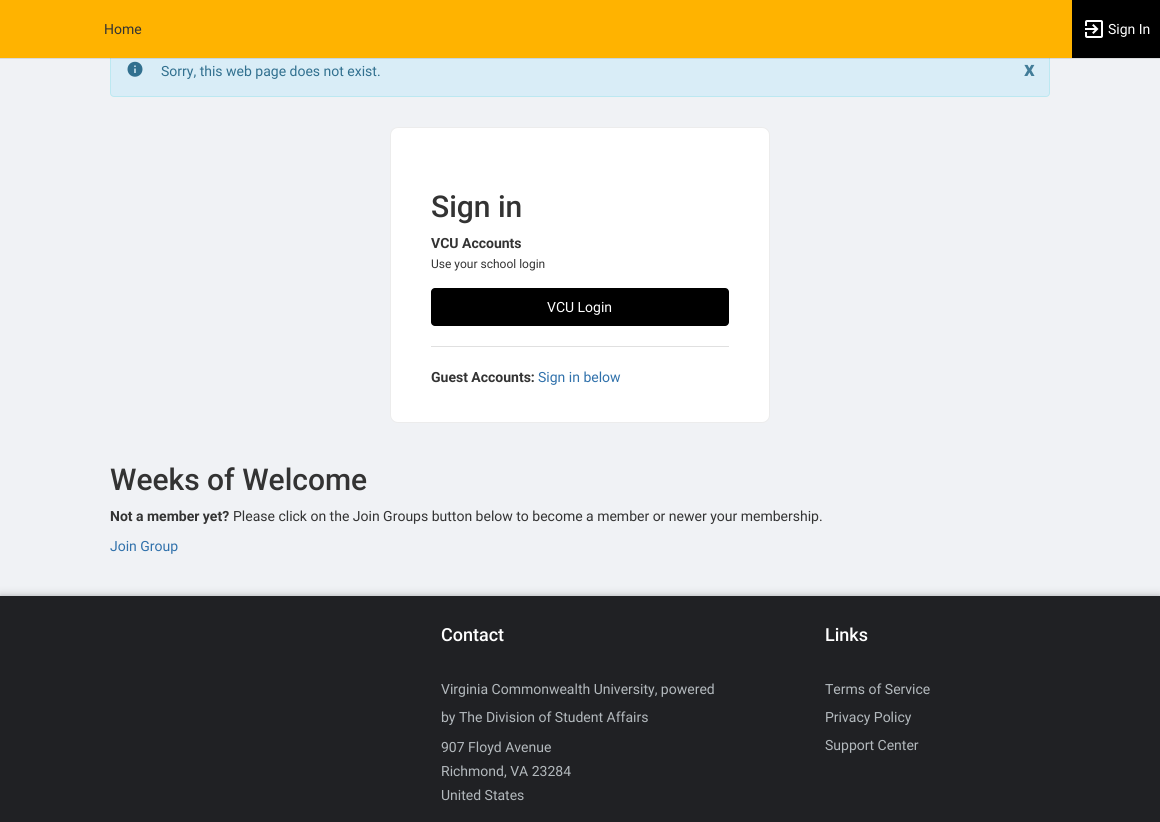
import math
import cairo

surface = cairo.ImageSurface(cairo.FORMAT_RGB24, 1160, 822)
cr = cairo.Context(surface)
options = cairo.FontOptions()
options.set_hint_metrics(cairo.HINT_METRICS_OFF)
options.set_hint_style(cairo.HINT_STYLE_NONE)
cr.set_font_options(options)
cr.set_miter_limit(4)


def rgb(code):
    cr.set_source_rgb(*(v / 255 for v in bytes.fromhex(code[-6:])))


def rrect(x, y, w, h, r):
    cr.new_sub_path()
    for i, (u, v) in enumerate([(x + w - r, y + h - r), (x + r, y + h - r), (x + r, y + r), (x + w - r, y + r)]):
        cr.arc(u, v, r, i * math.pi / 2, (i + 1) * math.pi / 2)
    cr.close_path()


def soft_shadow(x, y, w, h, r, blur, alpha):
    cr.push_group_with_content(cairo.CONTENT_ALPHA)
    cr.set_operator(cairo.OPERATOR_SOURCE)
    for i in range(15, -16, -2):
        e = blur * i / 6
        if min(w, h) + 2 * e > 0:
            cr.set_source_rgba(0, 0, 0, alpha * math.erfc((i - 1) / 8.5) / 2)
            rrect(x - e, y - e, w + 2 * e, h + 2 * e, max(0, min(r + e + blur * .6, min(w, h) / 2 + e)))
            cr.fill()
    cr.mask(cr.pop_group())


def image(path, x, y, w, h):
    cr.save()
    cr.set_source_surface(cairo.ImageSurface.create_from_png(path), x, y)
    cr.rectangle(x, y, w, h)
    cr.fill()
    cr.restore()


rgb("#f0f2f5")
cr.paint()
rgb("#d9edf7")
rrect(110.5, 45.5, 939, 51, 3.5)
cr.fill_preserve()
rgb("#bce8f1")
cr.set_line_width(1)
cr.stroke()
rgb("#ffb300")
cr.rectangle(0, 0, 1072, 58)
cr.fill()
cr.set_source_rgba(0, 0, 0, 0.1)
cr.rectangle(70, 58, 1090, 1)
cr.fill()
rgb("#000000")
cr.rectangle(1072, 0, 88, 58)
cr.fill()
image("img/1.png", 1085, 20, 18, 18)
rgb("#d8dadd")
cr.rectangle(0, 58, 70, 1)
cr.fill()
image("img/2.png", 127, 61, 16, 16)
rgb("#ffffff")
rrect(390.5, 127.5, 379, 295, 7.5)
cr.fill_preserve()
rgb("#ececec")
cr.stroke()
rgb("#000000")
rrect(431, 288, 298, 38, 4)
cr.fill()
rgb("#e0e0e0")
cr.rectangle(431, 346, 298, 1)
cr.fill()
rgb("#000000")
soft_shadow(0, 595, 1160, 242, 0, 5, 0.14)
soft_shadow(0, 595, 1160, 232, 0, 1.5, 0.1)
rgb("#202124")
cr.rectangle(0, 596, 1160, 226)
cr.fill()
cr.select_font_face("Roboto")
cr.set_font_size(14)
rgb("#333333")
cr.move_to(104, 34)
cr.show_text("Home")
rgb("#ffffff")
cr.move_to(1108, 34)
cr.show_text("Sign In")
rgb("#31708f")
cr.move_to(161, 76)
cr.show_text("Sorry, this web page does not exist.")
cr.select_font_face("Roboto", cairo.FONT_SLANT_NORMAL, cairo.FONT_WEIGHT_BOLD)
cr.set_font_size(21)
rgb("#427d99")
cr.move_to(1024, 76)
cr.show_text("x")
cr.select_font_face("Roboto Medium")
cr.set_font_size(30)
rgb("#333333")
cr.move_to(431, 217)
cr.show_text("Sign in")
cr.select_font_face("Roboto", cairo.FONT_SLANT_NORMAL, cairo.FONT_WEIGHT_BOLD)
cr.set_font_size(14)
cr.move_to(431, 248)
cr.show_text("VCU Accounts")
cr.select_font_face("Roboto")
cr.set_font_size(12)
cr.move_to(431, 268)
cr.show_text("Use your school login")
cr.set_font_size(14)
rgb("#ffffff")
cr.move_to(547, 312)
cr.show_text("VCU Login")
cr.select_font_face("Roboto", cairo.FONT_SLANT_NORMAL, cairo.FONT_WEIGHT_BOLD)
rgb("#333333")
cr.move_to(431, 382)
cr.show_text("Guest Accounts:")
cr.select_font_face("Roboto")
rgb("#3071ab")
cr.move_to(538, 382)
cr.show_text("Sign in below")
cr.select_font_face("Roboto Medium")
cr.set_font_size(30)
rgb("#333333")
cr.move_to(110, 490)
cr.show_text("Weeks of Welcome")
cr.select_font_face("Roboto", cairo.FONT_SLANT_NORMAL, cairo.FONT_WEIGHT_BOLD)
cr.set_font_size(14)
cr.move_to(110, 521)
cr.show_text("Not a member yet?")
cr.select_font_face("Roboto")
cr.move_to(233, 521)
cr.show_text("Please click on the Join Groups button below to become a member or newer your membership.")
rgb("#3071ab")
cr.move_to(110, 551)
cr.show_text("Join Group")
cr.select_font_face("Roboto Medium")
cr.set_font_size(18)
rgb("#ffffff")
cr.move_to(441, 641)
cr.show_text("Contact")
cr.select_font_face("Roboto")
cr.set_font_size(14)
rgb("#b3b9bd")
for x, y, s in [
    (441, 694, "Virginia Commonwealth University, powered"),
    (441, 722, "by The Division of Student Affairs"),
    (441, 752, "907 Floyd Avenue"),
    (441, 776, "Richmond, VA 23284"),
    (441, 800, "United States"),
]:
    cr.move_to(x, y)
    cr.show_text(s)
cr.select_font_face("Roboto Medium")
cr.set_font_size(18)
rgb("#ffffff")
cr.move_to(825, 641)
cr.show_text("Links")
cr.select_font_face("Roboto")
cr.set_font_size(14)
rgb("#b3b9bd")
for x, y, s in [
    (825, 694, "Terms of Service"),
    (825, 722, "Privacy Policy"),
    (825, 750, "Support Center"),
]:
    cr.move_to(x, y)
    cr.show_text(s)
surface.write_to_png("page.png")
